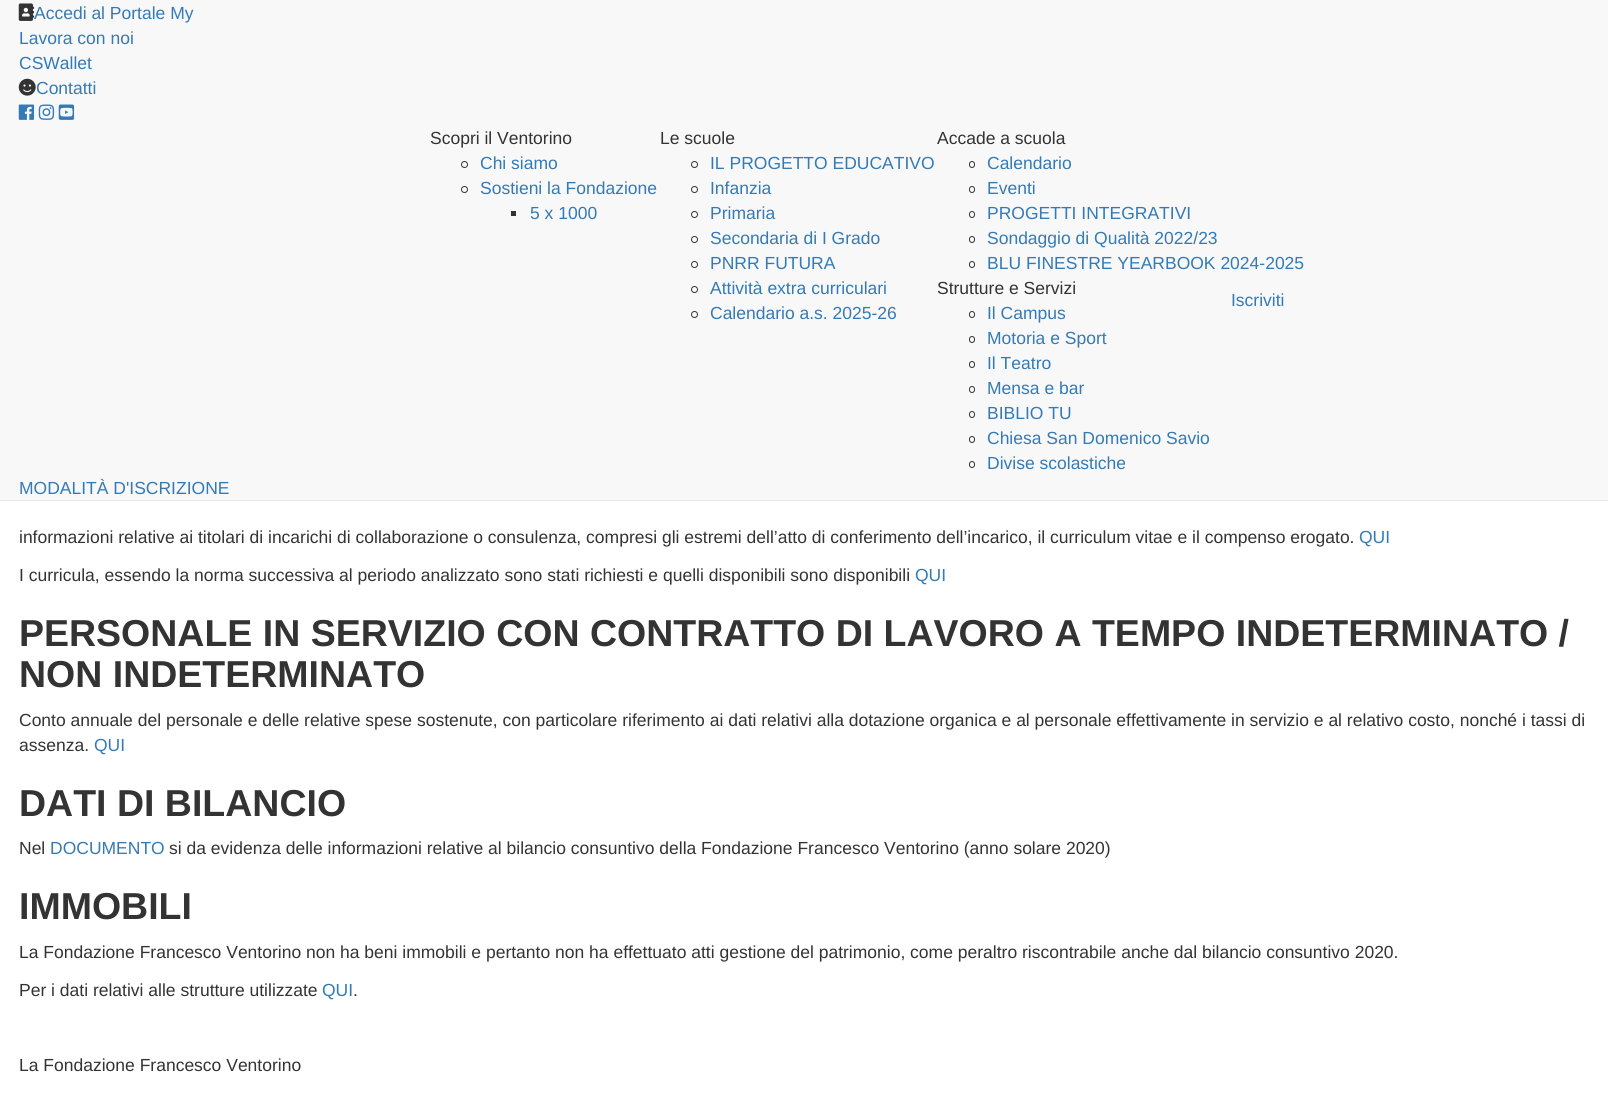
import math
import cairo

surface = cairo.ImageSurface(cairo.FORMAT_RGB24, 1608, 1095)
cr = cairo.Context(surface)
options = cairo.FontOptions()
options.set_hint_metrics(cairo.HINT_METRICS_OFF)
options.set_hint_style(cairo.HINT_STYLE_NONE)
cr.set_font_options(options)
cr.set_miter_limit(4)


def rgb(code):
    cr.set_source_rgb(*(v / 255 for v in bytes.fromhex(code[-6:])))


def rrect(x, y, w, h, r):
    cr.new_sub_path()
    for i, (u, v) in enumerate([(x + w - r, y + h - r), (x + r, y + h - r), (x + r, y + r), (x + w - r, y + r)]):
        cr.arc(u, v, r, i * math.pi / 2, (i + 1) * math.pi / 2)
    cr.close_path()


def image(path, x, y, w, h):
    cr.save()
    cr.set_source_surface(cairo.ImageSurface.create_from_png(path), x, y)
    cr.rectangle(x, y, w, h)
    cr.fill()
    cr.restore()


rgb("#ffffff")
cr.paint()
rgb("#f8f8f8")
cr.rectangle(0, 0, 1608, 500)
cr.fill()
rgb("#e7e7e7")
cr.rectangle(0, 500, 1608, 1)
cr.fill()
image("img/1.png", 18, 3, 17, 18)
image("img/2.png", 18, 78, 18, 18)
image("img/3.png", 18, 104, 17, 16)
image("img/4.png", 38, 104, 17, 16)
image("img/5.png", 58, 104, 17, 16)
cr.arc(464.5, 164.5, 3, 0, 2 * math.pi)
rgb("#333333")
cr.set_line_width(1)
cr.stroke()
cr.arc(464.5, 189.5, 3, 0, 2 * math.pi)
cr.stroke()
cr.rectangle(511, 211, 5, 5)
cr.fill()
cr.arc(694.5, 164.5, 3, 0, 2 * math.pi)
cr.stroke()
cr.arc(694.5, 189.5, 3, 0, 2 * math.pi)
cr.stroke()
cr.arc(694.5, 214.5, 3, 0, 2 * math.pi)
cr.stroke()
cr.arc(694.5, 239.5, 3, 0, 2 * math.pi)
cr.stroke()
cr.arc(694.5, 264.5, 3, 0, 2 * math.pi)
cr.stroke()
cr.arc(694.5, 289.5, 3, 0, 2 * math.pi)
cr.stroke()
cr.arc(694.5, 314.5, 3, 0, 2 * math.pi)
cr.stroke()
rrect(969.5, 161.5, 5, 6, 2.5)
cr.stroke()
rrect(969.5, 186.5, 5, 6, 2.5)
cr.stroke()
rrect(969.5, 211.5, 5, 6, 2.5)
cr.stroke()
rrect(969.5, 236.5, 5, 6, 2.5)
cr.stroke()
rrect(969.5, 261.5, 5, 6, 2.5)
cr.stroke()
rrect(969.5, 311.5, 5, 6, 2.5)
cr.stroke()
rrect(969.5, 336.5, 5, 6, 2.5)
cr.stroke()
rrect(969.5, 361.5, 5, 6, 2.5)
cr.stroke()
rrect(969.5, 386.5, 5, 6, 2.5)
cr.stroke()
rrect(969.5, 411.5, 5, 6, 2.5)
cr.stroke()
rrect(969.5, 436.5, 5, 6, 2.5)
cr.stroke()
rrect(969.5, 461.5, 5, 6, 2.5)
cr.stroke()
cr.select_font_face("Liberation Sans")
cr.set_font_size(17.5)
rgb("#337ab7")
for x, y, s in [
    (34, 19, "Accedi al Portale My"),
    (19, 44, "Lavora con noi"),
    (19, 69, "CSWallet"),
    (36, 94, "Contatti"),
]:
    cr.move_to(x, y)
    cr.show_text(s)
rgb("#333333")
cr.move_to(430, 144)
cr.show_text("Scopri il Ventorino")
rgb("#337ab7")
for x, y, s in [
    (480, 169, "Chi siamo"),
    (480, 194, "Sostieni la Fondazione"),
    (530, 219, "5 x 1000"),
]:
    cr.move_to(x, y)
    cr.show_text(s)
rgb("#333333")
cr.move_to(660, 144)
cr.show_text("Le scuole")
rgb("#337ab7")
for x, y, s in [
    (710, 169, "IL PROGETTO EDUCATIVO"),
    (710, 194, "Infanzia"),
    (710, 219, "Primaria"),
    (710, 244, "Secondaria di I Grado"),
    (710, 269, "PNRR FUTURA"),
    (710, 294, "Attività extra curriculari"),
    (710, 319, "Calendario a.s. 2025-26"),
]:
    cr.move_to(x, y)
    cr.show_text(s)
rgb("#333333")
cr.move_to(937, 144)
cr.show_text("Accade a scuola")
rgb("#337ab7")
for x, y, s in [
    (987, 169, "Calendario"),
    (987, 194, "Eventi"),
    (987, 219, "PROGETTI INTEGRATIVI"),
    (987, 244, "Sondaggio di Qualità 2022/23"),
    (987, 269, "BLU FINESTRE YEARBOOK 2024-2025"),
]:
    cr.move_to(x, y)
    cr.show_text(s)
rgb("#333333")
cr.move_to(937, 294)
cr.show_text("Strutture e Servizi")
rgb("#337ab7")
for x, y, s in [
    (987, 319, "Il Campus"),
    (987, 344, "Motoria e Sport"),
    (987, 369, "Il Teatro"),
    (987, 394, "Mensa e bar"),
    (987, 419, "BIBLIO TU"),
    (987, 444, "Chiesa San Domenico Savio"),
    (987, 469, "Divise scolastiche"),
    (1231, 306, "Iscriviti"),
    (19, 494, "MODALITÀ D'ISCRIZIONE"),
]:
    cr.move_to(x, y)
    cr.show_text(s)
rgb("#333333")
cr.move_to(19, 543)
cr.show_text("informazioni relative ai titolari di incarichi di collaborazione o consulenza, compresi gli estremi dell’atto di conferimento dell’incarico, il curriculum vitae e il compenso erogato.")
rgb("#337ab7")
cr.move_to(1359, 543)
cr.show_text("QUI")
rgb("#333333")
cr.move_to(19, 581)
cr.show_text("I curricula, essendo la norma successiva al periodo analizzato sono stati richiesti e quelli disponibili sono disponibili")
rgb("#337ab7")
cr.move_to(915, 581)
cr.show_text("QUI")
cr.select_font_face("Liberation Sans", cairo.FONT_SLANT_NORMAL, cairo.FONT_WEIGHT_BOLD)
cr.set_font_size(37.5)
rgb("#333333")
cr.move_to(19, 646)
cr.show_text("PERSONALE IN SERVIZIO CON CONTRATTO DI LAVORO A TEMPO INDETERMINATO /")
cr.move_to(19, 687)
cr.show_text("NON INDETERMINATO")
cr.select_font_face("Liberation Sans")
cr.set_font_size(17.5)
cr.move_to(19, 726)
cr.show_text("Conto annuale del personale e delle relative spese sostenute, con particolare riferimento ai dati relativi alla dotazione organica e al personale effettivamente in servizio e al relativo costo, nonché i tassi di")
cr.move_to(19, 751)
cr.show_text("assenza.")
rgb("#337ab7")
cr.move_to(94, 751)
cr.show_text("QUI")
cr.select_font_face("Liberation Sans", cairo.FONT_SLANT_NORMAL, cairo.FONT_WEIGHT_BOLD)
cr.set_font_size(37.5)
rgb("#333333")
cr.move_to(19, 816)
cr.show_text("DATI DI BILANCIO")
cr.select_font_face("Liberation Sans")
cr.set_font_size(17.5)
cr.move_to(19, 854)
cr.show_text("Nel")
rgb("#337ab7")
cr.move_to(50, 854)
cr.show_text("DOCUMENTO")
rgb("#333333")
cr.move_to(169, 854)
cr.show_text("si da evidenza delle informazioni relative al bilancio consuntivo della Fondazione Francesco Ventorino (anno solare 2020)")
cr.select_font_face("Liberation Sans", cairo.FONT_SLANT_NORMAL, cairo.FONT_WEIGHT_BOLD)
cr.set_font_size(37.5)
cr.move_to(19, 919)
cr.show_text("IMMOBILI")
cr.select_font_face("Liberation Sans")
cr.set_font_size(17.5)
cr.move_to(19, 958)
cr.show_text("La Fondazione Francesco Ventorino non ha beni immobili e pertanto non ha effettuato atti gestione del patrimonio, come peraltro riscontrabile anche dal bilancio consuntivo 2020.")
cr.move_to(19, 996)
cr.show_text("Per i dati relativi alle strutture utilizzate")
rgb("#337ab7")
cr.move_to(322, 996)
cr.show_text("QUI")
rgb("#333333")
cr.move_to(353, 996)
cr.show_text(".")
cr.move_to(19, 1071)
cr.show_text("La Fondazione Francesco Ventorino")
surface.write_to_png("page.png")
